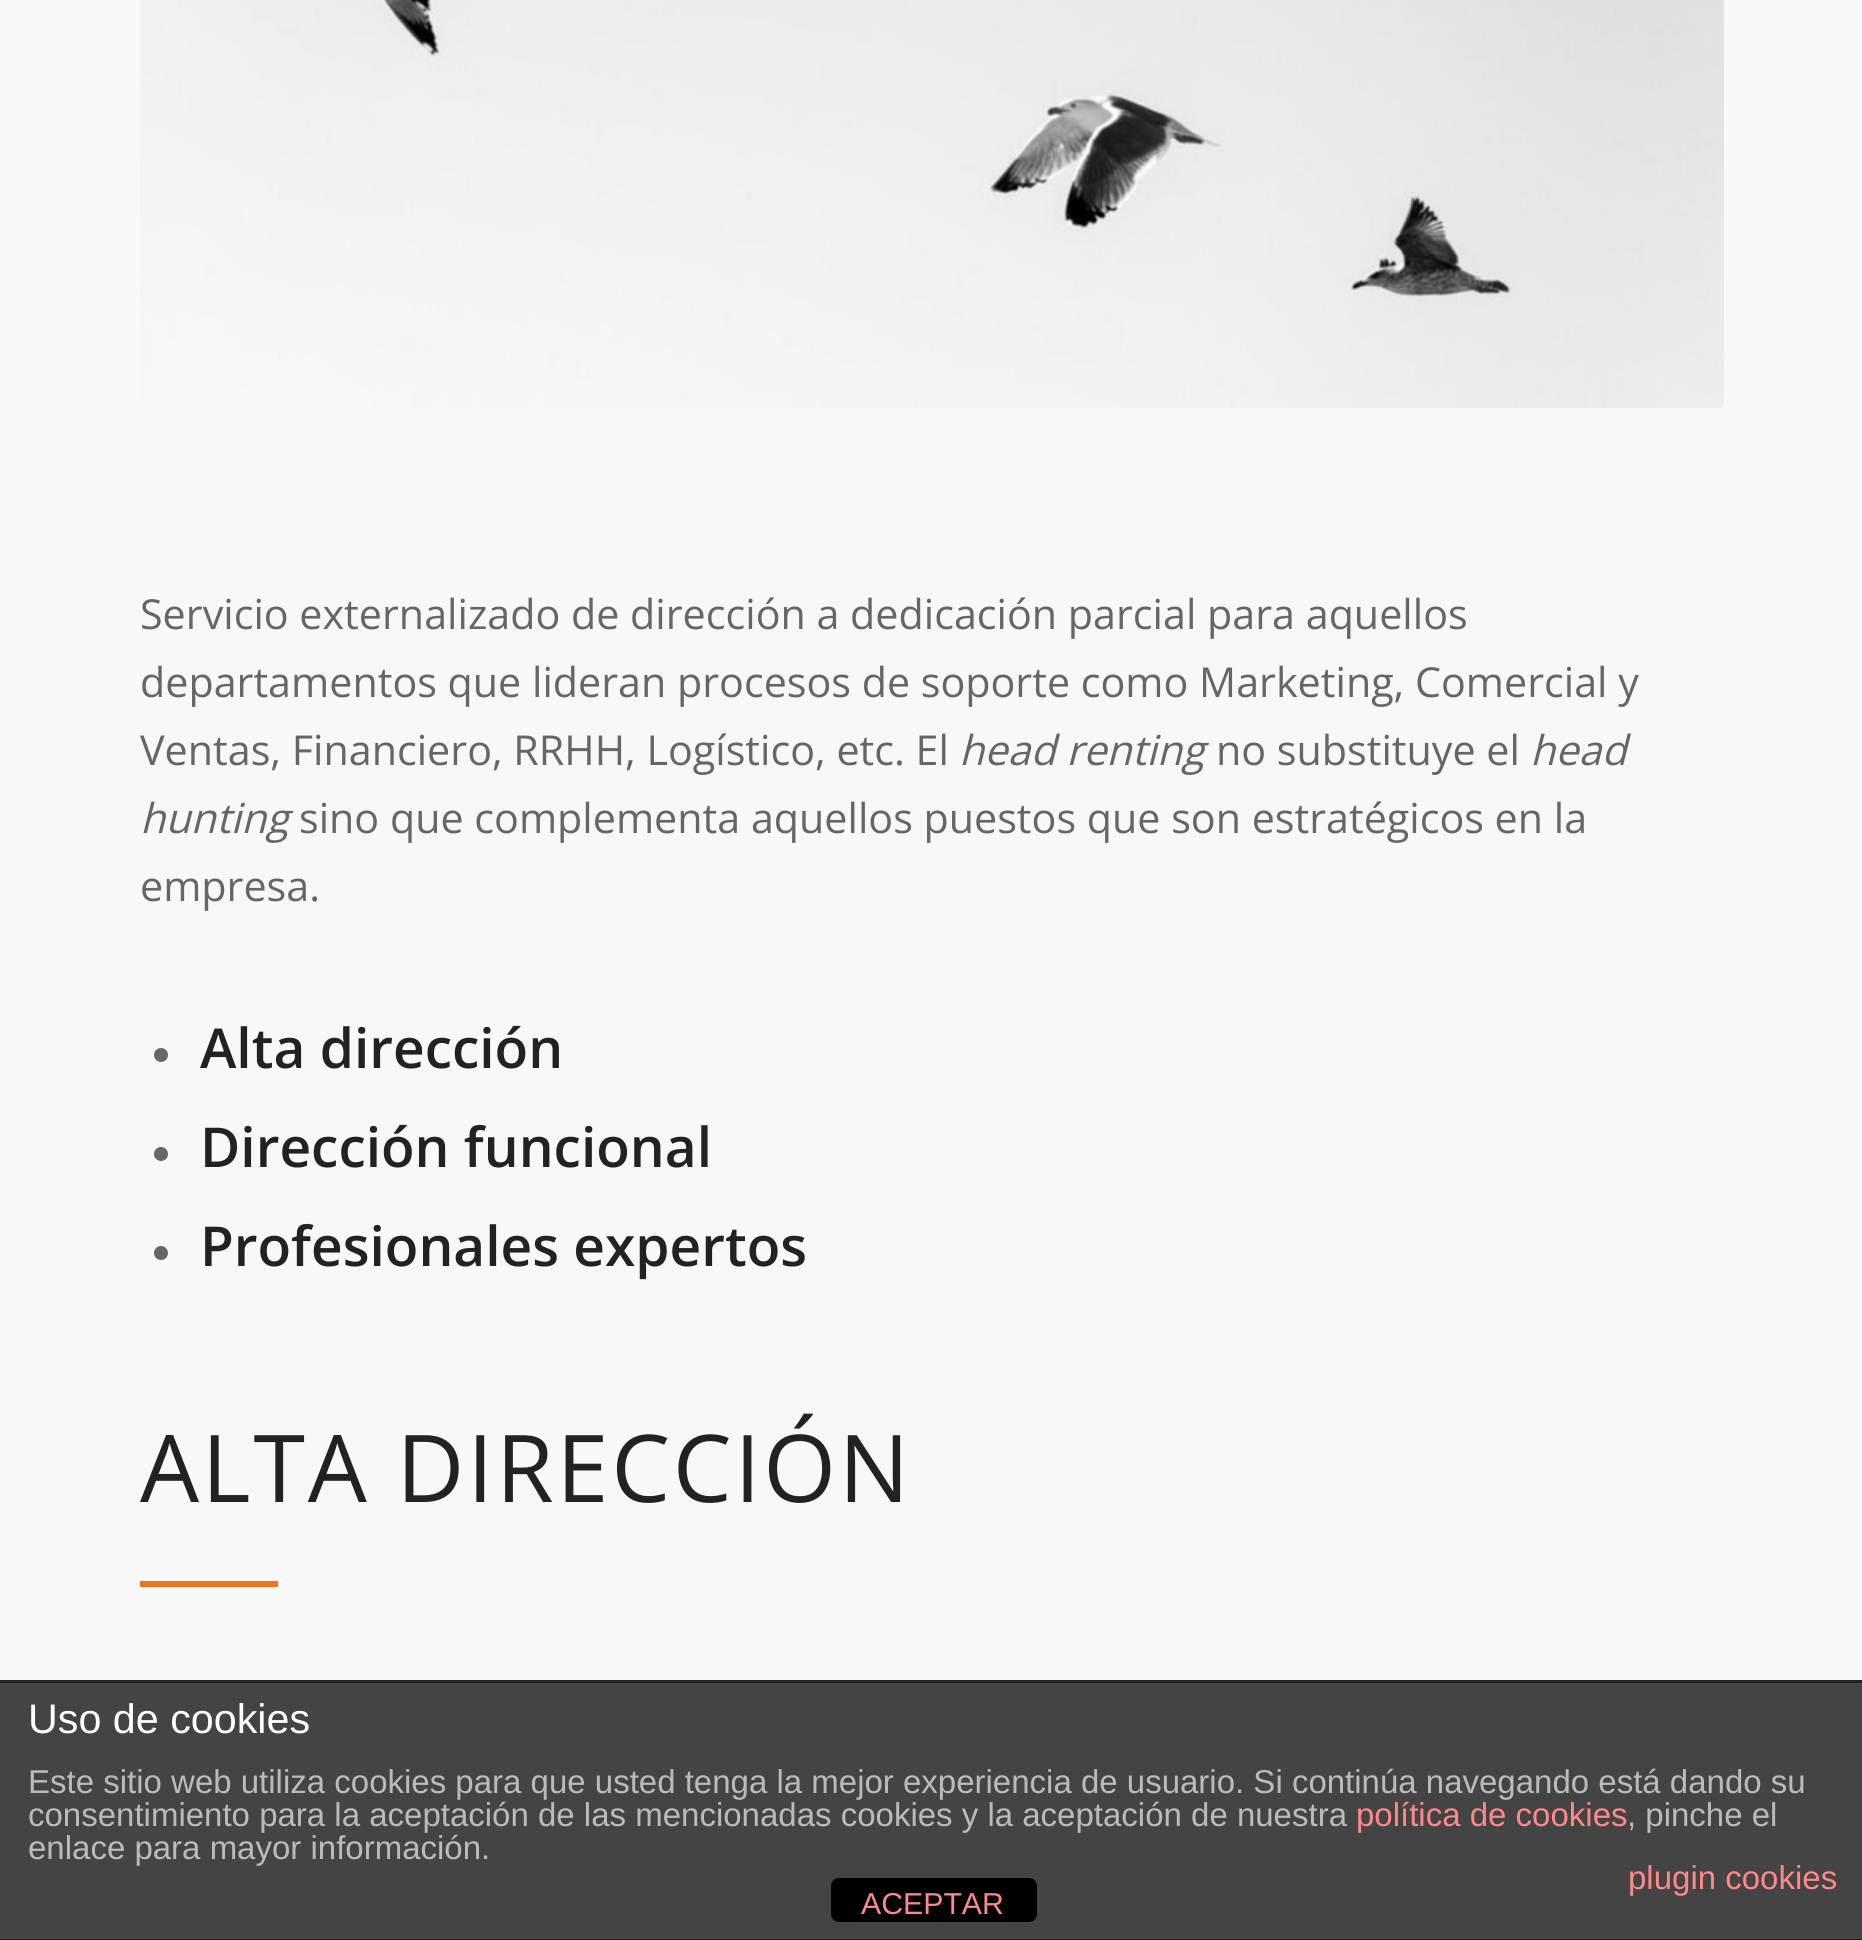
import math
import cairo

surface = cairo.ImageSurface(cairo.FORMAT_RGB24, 1862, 1940)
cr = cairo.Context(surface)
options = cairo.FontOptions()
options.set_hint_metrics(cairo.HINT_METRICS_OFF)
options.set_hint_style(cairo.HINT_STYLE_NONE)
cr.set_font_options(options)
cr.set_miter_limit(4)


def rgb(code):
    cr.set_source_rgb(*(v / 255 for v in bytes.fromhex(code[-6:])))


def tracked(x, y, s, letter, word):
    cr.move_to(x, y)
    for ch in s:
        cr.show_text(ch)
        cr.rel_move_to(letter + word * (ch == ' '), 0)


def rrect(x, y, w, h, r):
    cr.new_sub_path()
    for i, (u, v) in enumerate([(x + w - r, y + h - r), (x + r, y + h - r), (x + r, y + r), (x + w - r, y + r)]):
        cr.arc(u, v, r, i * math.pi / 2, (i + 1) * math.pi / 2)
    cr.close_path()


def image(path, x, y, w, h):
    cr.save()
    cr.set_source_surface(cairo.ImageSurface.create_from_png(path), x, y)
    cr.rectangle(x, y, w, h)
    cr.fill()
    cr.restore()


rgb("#f8f8f8")
cr.paint()
image("img/1.png", 140, 0, 1584, 408)
rgb("#666666")
cr.arc(161, 1055, 7, 0, 2 * math.pi)
cr.fill()
cr.arc(161, 1154, 7, 0, 2 * math.pi)
cr.fill()
cr.arc(161, 1253, 7, 0, 2 * math.pi)
cr.fill()
for x, y, w, h, color in [
    (140, 1581, 138, 6, "#f4711f"),
    (0, 1683, 1862, 256, "#444444"),
    (0, 1680, 1862, 3, "#222222"),
    (0, 1939, 1862, 1, "#222222"),
]:
    rgb(color)
    cr.rectangle(x, y, w, h)
    cr.fill()
rgb("#000000")
rrect(831, 1878, 206, 44, 8)
cr.fill()
cr.select_font_face("Open Sans")
cr.set_font_size(41.25)
rgb("#666666")
for x, y, s in [
    (140, 629, "Servicio externalizado de dirección a dedicación parcial para aquellos"),
    (140, 697, "departamentos que lideran procesos de soporte como Marketing, Comercial y"),
    (140, 765, "Ventas, Financiero, RRHH, Logístico, etc. El"),
]:
    cr.move_to(x, y)
    cr.show_text(s)
cr.select_font_face("Open Sans", cairo.FONT_SLANT_ITALIC)
cr.move_to(959, 765)
cr.show_text("head renting")
cr.select_font_face("Open Sans")
cr.move_to(1216, 765)
cr.show_text("no substituye el")
cr.select_font_face("Open Sans", cairo.FONT_SLANT_ITALIC)
cr.move_to(1530, 765)
cr.show_text("head")
cr.move_to(140, 833)
cr.show_text("hunting")
cr.select_font_face("Open Sans")
cr.move_to(299, 833)
cr.show_text("sino que complementa aquellos puestos que son estratégicos en la")
cr.move_to(140, 901)
cr.show_text("empresa.")
cr.select_font_face("Open Sans SemiBold")
cr.set_font_size(55)
rgb("#222222")
for x, y, s in [
    (200, 1068, "Alta dirección"),
    (200, 1167, "Dirección funcional"),
    (200, 1266, "Profesionales expertos"),
]:
    cr.move_to(x, y)
    cr.show_text(s)
cr.select_font_face("Open Sans")
cr.set_font_size(93.5)
tracked(140, 1502, "ALTA DIRECCIÓN", 2.75, 0)
cr.select_font_face("Liberation Sans")
cr.set_font_size(41.25)
rgb("#ffffff")
cr.move_to(28, 1733)
cr.show_text("Uso de cookies")
cr.set_font_size(33)
rgb("#bbbbbb")
cr.move_to(28, 1793)
cr.show_text("Este sitio web utiliza cookies para que usted tenga la mejor experiencia de usuario. Si continúa navegando está dando su")
cr.move_to(28, 1826)
cr.show_text("consentimiento para la aceptación de las mencionadas cookies y la aceptación de nuestra")
rgb("#ff8888")
cr.move_to(1356, 1826)
cr.show_text("política de cookies")
rgb("#bbbbbb")
cr.move_to(1627, 1826)
cr.show_text(", pinche el")
cr.move_to(28, 1859)
cr.show_text("enlace para mayor información.")
rgb("#ff8888")
cr.move_to(1628, 1889)
cr.show_text("plugin cookies")
cr.set_font_size(30.25)
cr.move_to(861, 1914)
cr.show_text("ACEPTAR")
surface.write_to_png("page.png")
